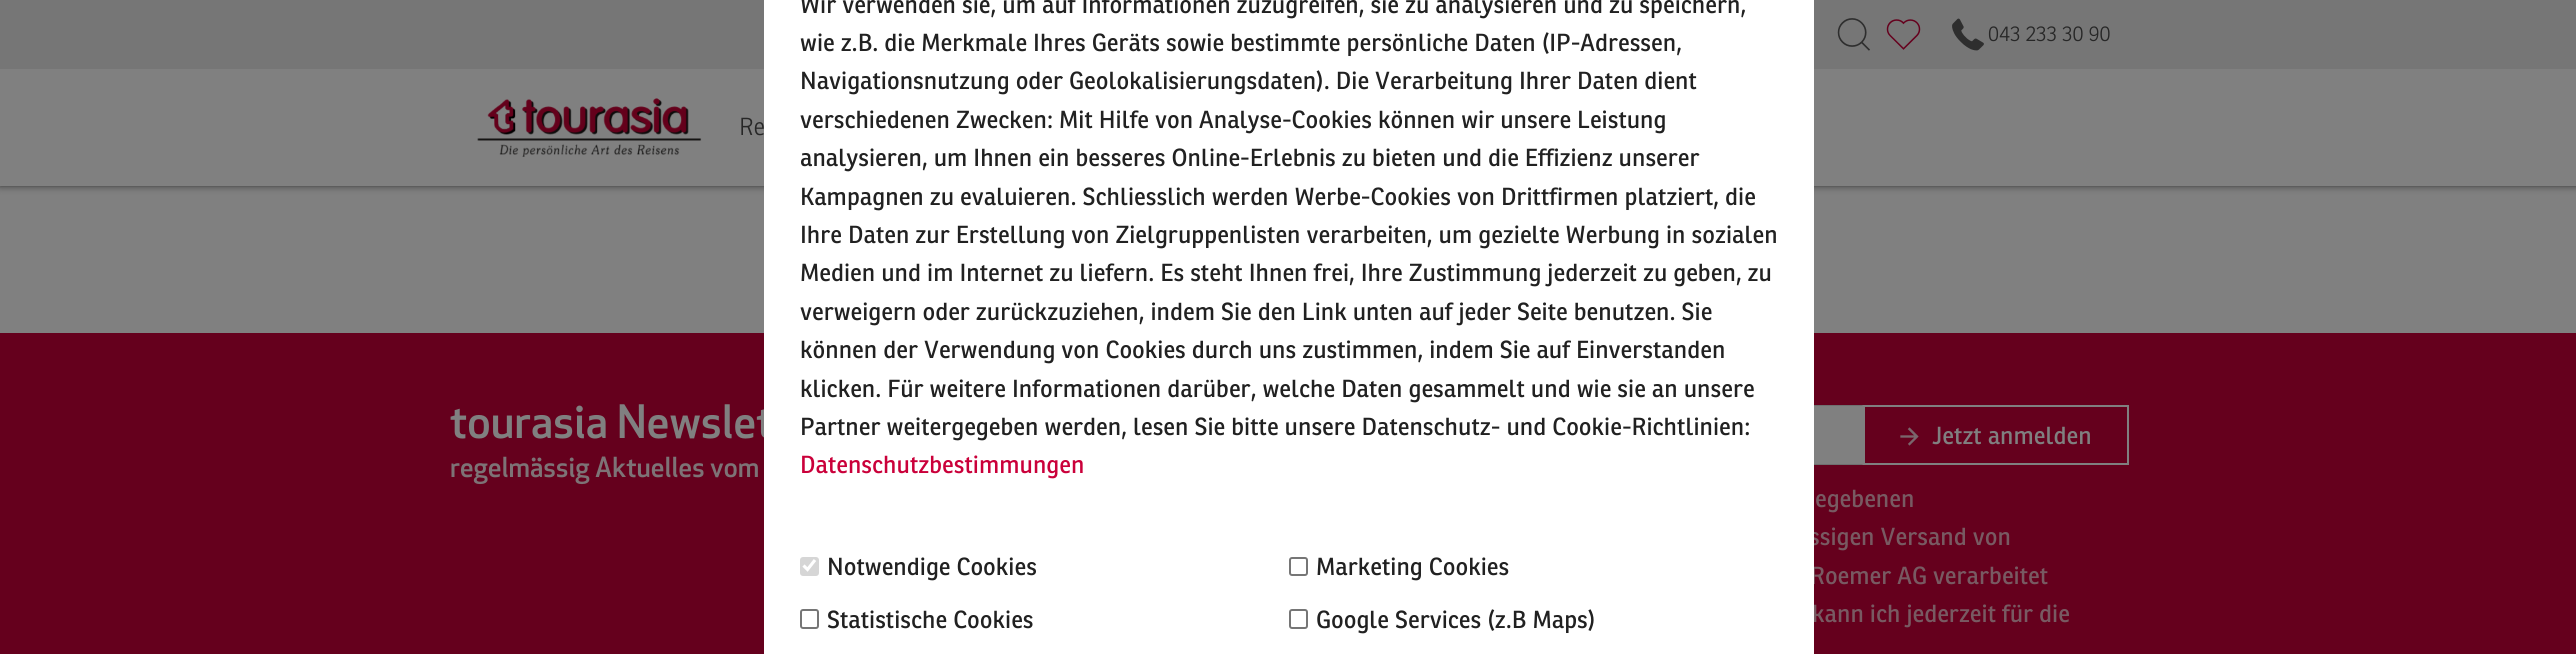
import math
import cairo

surface = cairo.ImageSurface(cairo.FORMAT_RGB24, 2576, 654)
cr = cairo.Context(surface)
options = cairo.FontOptions()
options.set_hint_metrics(cairo.HINT_METRICS_OFF)
options.set_hint_style(cairo.HINT_STYLE_NONE)
cr.set_font_options(options)
cr.set_miter_limit(4)


def rgb(code):
    cr.set_source_rgb(*(v / 255 for v in bytes.fromhex(code[-6:])))


def rrect(x, y, w, h, r):
    cr.new_sub_path()
    for i, (u, v) in enumerate([(x + w - r, y + h - r), (x + r, y + h - r), (x + r, y + r), (x + w - r, y + r)]):
        cr.arc(u, v, r, i * math.pi / 2, (i + 1) * math.pi / 2)
    cr.close_path()


def soft_shadow(x, y, w, h, r, blur, alpha):
    cr.push_group_with_content(cairo.CONTENT_ALPHA)
    cr.set_operator(cairo.OPERATOR_SOURCE)
    for i in range(15, -16, -2):
        e = blur * i / 6
        if min(w, h) + 2 * e > 0:
            cr.set_source_rgba(0, 0, 0, alpha * math.erfc((i - 1) / 8.5) / 2)
            rrect(x - e, y - e, w + 2 * e, h + 2 * e, max(0, min(r + e + blur * .6, min(w, h) / 2 + e)))
            cr.fill()
    cr.mask(cr.pop_group())


def image(path, x, y, w, h):
    cr.save()
    cr.set_source_surface(cairo.ImageSurface.create_from_png(path), x, y)
    cr.rectangle(x, y, w, h)
    cr.fill()
    cr.restore()


rgb("#808080")
cr.paint()
rgb("#65001d")
cr.rectangle(0, 333, 2576, 321)
cr.fill()
image("img/1.png", 450, 404, 314, 35)
image("img/2.png", 451, 456, 307, 29)
rgb("#808080")
cr.rectangle(1814, 405, 49, 60)
cr.fill()
rgb("#6f6f6f")
cr.new_path()
cr.move_to(1312, 405)
cr.line_to(1863, 405)
cr.line_to(1862, 406)
cr.line_to(1314, 406)
cr.close_path()
cr.fill()
cr.new_path()
cr.move_to(1863, 465)
cr.line_to(1312, 465)
cr.line_to(1314, 464)
cr.line_to(1862, 464)
cr.close_path()
cr.fill()
cr.rectangle(1864, 406, 264, 58)
rgb("#808080")
cr.stroke()
image("img/3.png", 1900, 427, 19, 19)
rgb("#000000")
soft_shadow(0, -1, 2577, 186, 0, 4, 0.75)
rgb("#808080")
cr.rectangle(0, 69, 2576, 117)
cr.fill()
rgb("#767676")
cr.rectangle(0, 0, 2576, 69)
cr.fill()
image("img/4.png", 1837, 18, 33, 33)
image("img/5.png", 1886, 19, 35, 31)
image("img/6.png", 1952, 18, 32, 33)
image("img/7.png", 477, 98, 225, 59)
cr.select_font_face("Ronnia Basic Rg")
cr.set_font_size(24)
rgb("#808080")
cr.move_to(1932, 444)
cr.show_text("Jetzt anmelden")
rgb("#785a62")
for x, y, s in [
    (1815, 507, "egebenen"),
    (1809, 545, "ssigen Versand von"),
    (1810, 584, "Roemer AG verarbeitet"),
    (1812, 622, "kann ich jederzeit für die"),
]:
    cr.move_to(x, y)
    cr.show_text(s)
rgb("#ffffff")
cr.rectangle(764, 0, 1050, 654)
cr.fill()
rgb("#212121")
cr.move_to(1316, 628)
cr.show_text("Google Services (z.B Maps)")
rrect(1290, 610, 17, 18, 2)
rgb("#767676")
cr.stroke()
rgb("#212121")
cr.move_to(827, 628)
cr.show_text("Statistische Cookies")
rrect(801, 610, 17, 18, 2)
rgb("#767676")
cr.stroke()
rgb("#212121")
cr.move_to(1316, 575)
cr.show_text("Marketing Cookies")
rrect(1290, 558, 17, 17, 2)
rgb("#767676")
cr.stroke()
rgb("#212121")
cr.move_to(827, 575)
cr.show_text("Notwendige Cookies")
rgb("#d6d6d6")
rrect(800, 557, 19, 19, 3)
cr.fill()
cr.new_path()
cr.move_to(803.5, 565.5)
cr.line_to(807.5, 569.5)
cr.line_to(815, 560)
rgb("#ffffff")
cr.set_line_width(3.1)
cr.stroke()
rgb("#ca003a")
cr.move_to(800, 473)
cr.show_text("Datenschutzbestimmungen")
rgb("#212121")
for x, y, s in [
    (800, 435, "Partner weitergegeben werden, lesen Sie bitte unsere Datenschutz- und Cookie-Richtlinien:"),
    (800, 397, "klicken. Für weitere Informationen darüber, welche Daten gesammelt und wie sie an unsere"),
    (800, 358, "können der Verwendung von Cookies durch uns zustimmen, indem Sie auf Einverstanden"),
    (800, 320, "verweigern oder zurückzuziehen, indem Sie den Link unten auf jeder Seite benutzen. Sie"),
    (800, 281, "Medien und im Internet zu liefern. Es steht Ihnen frei, Ihre Zustimmung jederzeit zu geben, zu"),
    (800, 243, "Ihre Daten zur Erstellung von Zielgruppenlisten verarbeiten, um gezielte Werbung in sozialen"),
    (800, 205, "Kampagnen zu evaluieren. Schliesslich werden Werbe-Cookies von Drittfirmen platziert, die"),
    (800, 166, "analysieren, um Ihnen ein besseres Online-Erlebnis zu bieten und die Effizienz unserer"),
    (800, 128, "verschiedenen Zwecken: Mit Hilfe von Analyse-Cookies können wir unsere Leistung"),
    (800, 89, "Navigationsnutzung oder Geolokalisierungsdaten). Die Verarbeitung Ihrer Daten dient"),
    (800, 51, "wie z.B. die Merkmale Ihres Geräts sowie bestimmte persönliche Daten (IP-Adressen,"),
    (800, 13, "Wir verwenden sie, um auf Informationen zuzugreifen, sie zu analysieren und zu speichern,"),
]:
    cr.move_to(x, y)
    cr.show_text(s)
cr.select_font_face("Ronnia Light")
cr.set_font_size(21)
rgb("#272727")
cr.move_to(1988, 41)
cr.show_text("043 233 30 90")
cr.set_font_size(24)
cr.move_to(739, 135)
cr.show_text("Re")
surface.write_to_png("page.png")
